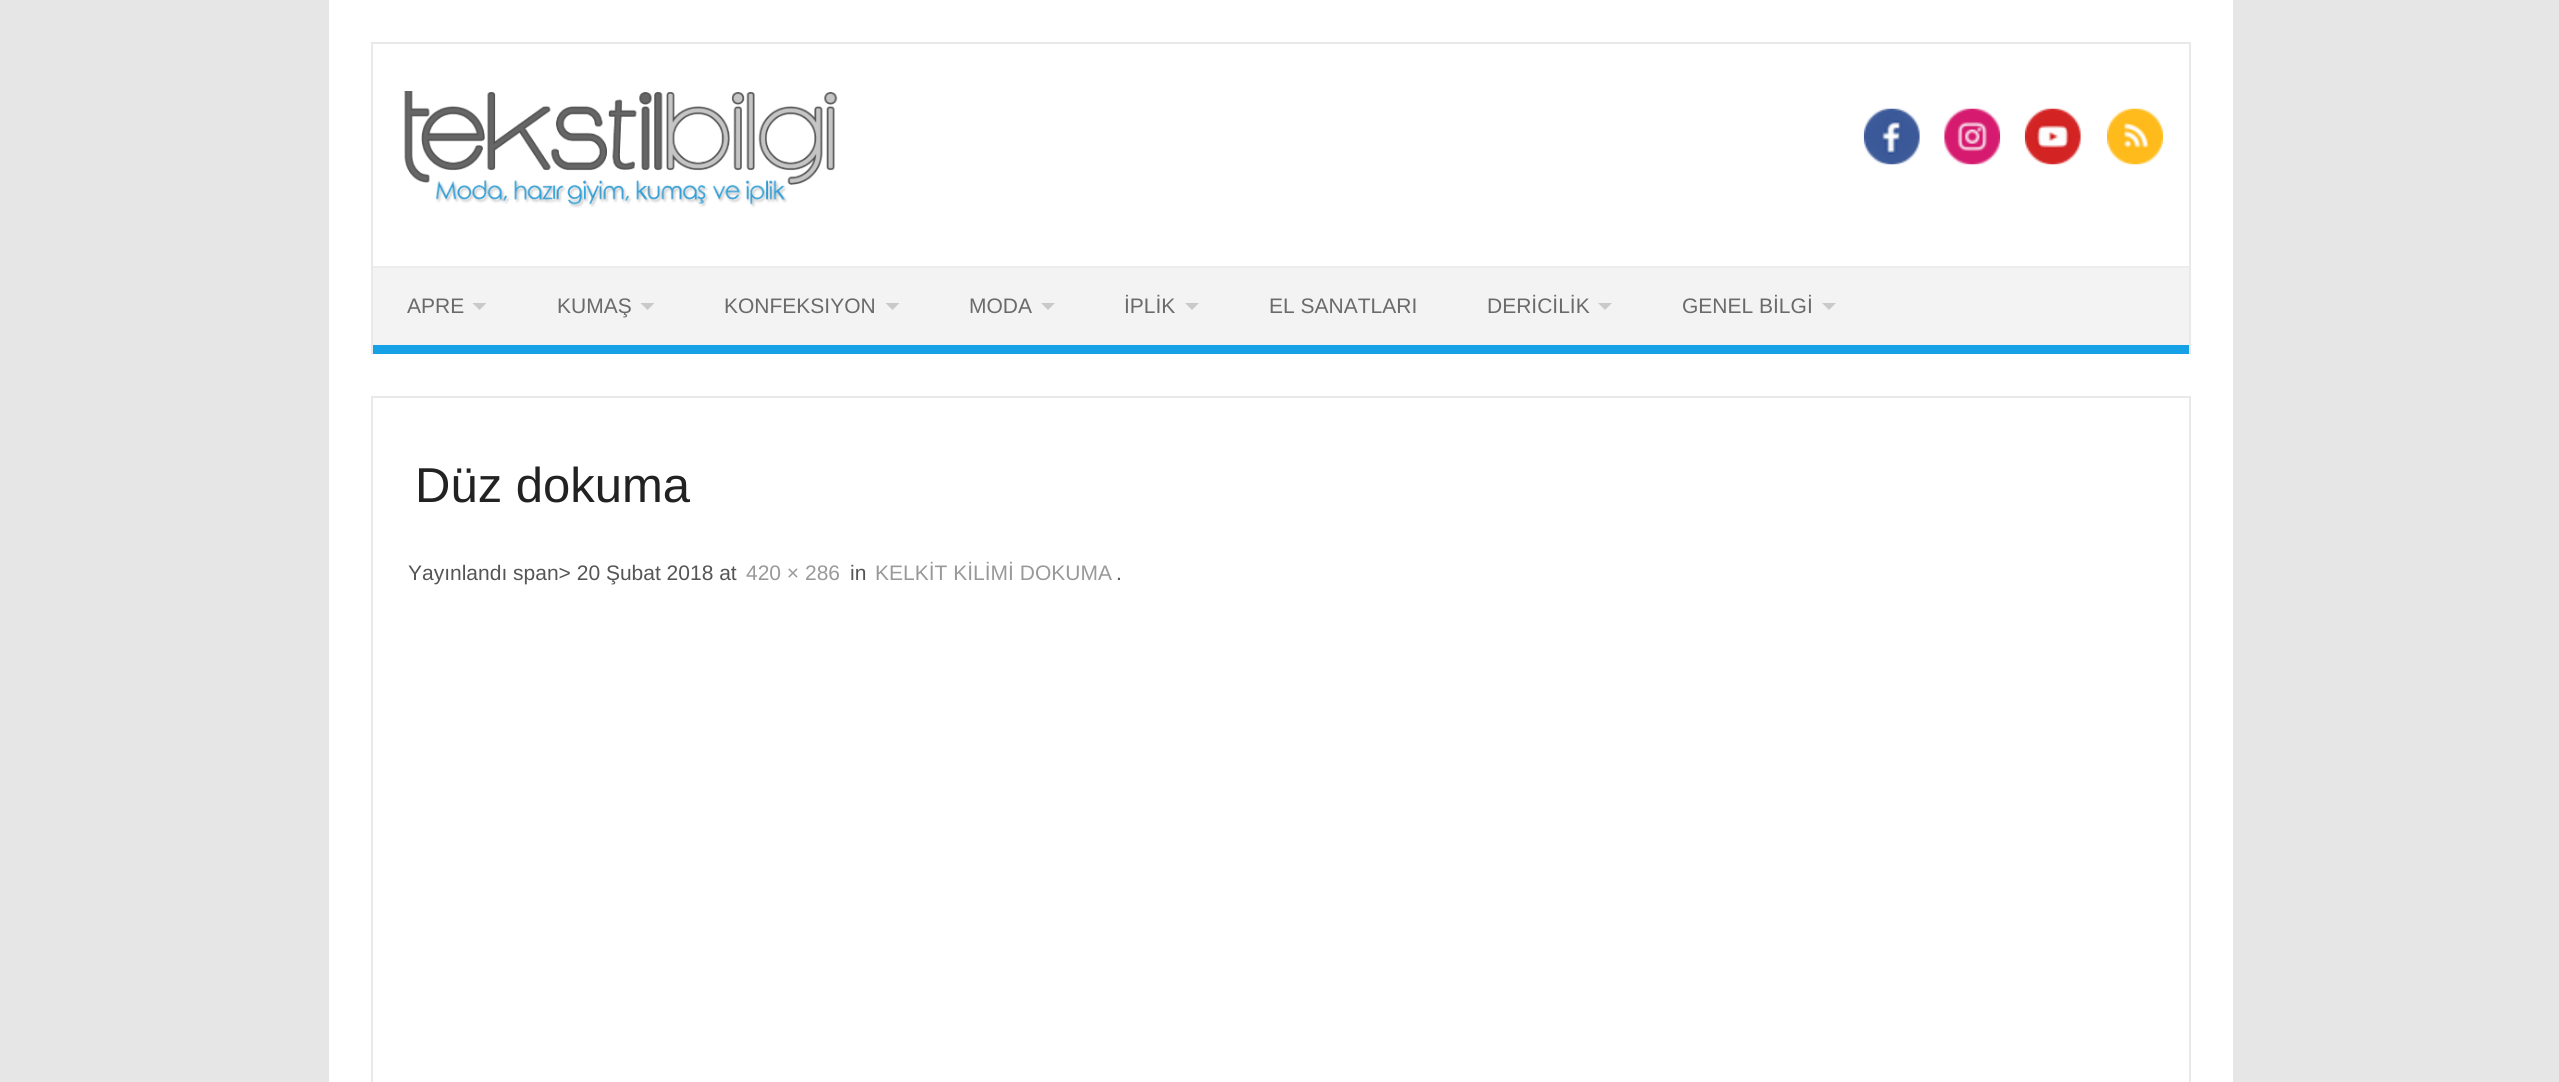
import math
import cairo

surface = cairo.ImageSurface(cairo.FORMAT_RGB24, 2559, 1082)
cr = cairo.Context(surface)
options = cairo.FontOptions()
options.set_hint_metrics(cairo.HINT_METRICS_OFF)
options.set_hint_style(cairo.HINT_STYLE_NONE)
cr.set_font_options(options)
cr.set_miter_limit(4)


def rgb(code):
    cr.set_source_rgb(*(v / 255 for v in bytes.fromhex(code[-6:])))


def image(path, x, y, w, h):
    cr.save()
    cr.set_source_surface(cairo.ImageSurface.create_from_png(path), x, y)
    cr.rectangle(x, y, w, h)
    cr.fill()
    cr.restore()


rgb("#e6e6e6")
cr.paint()
for x, y, w, h, color in [
    (329, 0, 1904, 1082, "#ffffff"),
    (371, 42, 1820, 2, "#e9e9e9"),
    (2189, 42, 2, 312, "#e9e9e9"),
    (371, 42, 2, 312, "#e9e9e9"),
]:
    rgb(color)
    cr.rectangle(x, y, w, h)
    cr.fill()
image("img/1.png", 404, 91, 434, 117)
image("img/2.png", 1863, 108, 57, 57)
image("img/3.png", 1944, 108, 57, 57)
image("img/4.png", 2024, 108, 57, 57)
image("img/5.png", 2107, 108, 56, 57)
for x, y, w, h, color in [
    (373, 268, 1816, 77, "#f3f3f3"),
    (373, 266, 1816, 2, "#ededed"),
    (373, 345, 1816, 9, "#16a1e7"),
]:
    rgb(color)
    cr.rectangle(x, y, w, h)
    cr.fill()
rgb("#c9c9c9")
cr.new_path()
cr.move_to(472.5, 303)
cr.line_to(486.5, 303)
cr.line_to(479.5, 310)
cr.close_path()
cr.fill()
cr.new_path()
cr.move_to(640.5, 303)
cr.line_to(654.5, 303)
cr.line_to(647.5, 310)
cr.close_path()
cr.fill()
cr.new_path()
cr.move_to(885.5, 303)
cr.line_to(899.5, 303)
cr.line_to(892.5, 310)
cr.close_path()
cr.fill()
cr.new_path()
cr.move_to(1041, 303)
cr.line_to(1055, 303)
cr.line_to(1048, 310)
cr.close_path()
cr.fill()
cr.new_path()
cr.move_to(1185, 303)
cr.line_to(1199, 303)
cr.line_to(1192, 310)
cr.close_path()
cr.fill()
cr.new_path()
cr.move_to(1598, 303)
cr.line_to(1612, 303)
cr.line_to(1605, 310)
cr.close_path()
cr.fill()
cr.new_path()
cr.move_to(1822, 303)
cr.line_to(1836, 303)
cr.line_to(1829, 310)
cr.close_path()
cr.fill()
cr.rectangle(372, 397, 1818, 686)
rgb("#e9e9e9")
cr.stroke()
cr.select_font_face("Liberation Sans")
cr.set_font_size(21)
rgb("#6a6a6a")
for x, y, s in [
    (407, 313, "APRE"),
    (557, 313, "KUMAŞ"),
    (724, 313, "KONFEKSIYON"),
    (969, 313, "MODA"),
    (1124, 313, "İPLİK"),
    (1269, 313, "EL SANATLARI"),
    (1487, 313, "DERİCİLİK"),
    (1682, 313, "GENEL BİLGİ"),
]:
    cr.move_to(x, y)
    cr.show_text(s)
cr.set_font_size(49)
rgb("#222222")
cr.move_to(415, 502)
cr.show_text("Düz dokuma")
cr.set_font_size(21)
rgb("#555555")
cr.move_to(408, 580)
cr.show_text("Yayınlandı span> 20 Şubat 2018 at")
rgb("#999999")
cr.move_to(746, 580)
cr.show_text("420 × 286")
rgb("#555555")
cr.move_to(850, 580)
cr.show_text("in")
rgb("#999999")
cr.move_to(875, 580)
cr.show_text("KELKİT KİLİMİ DOKUMA")
rgb("#555555")
cr.move_to(1116, 580)
cr.show_text(".")
surface.write_to_png("page.png")
